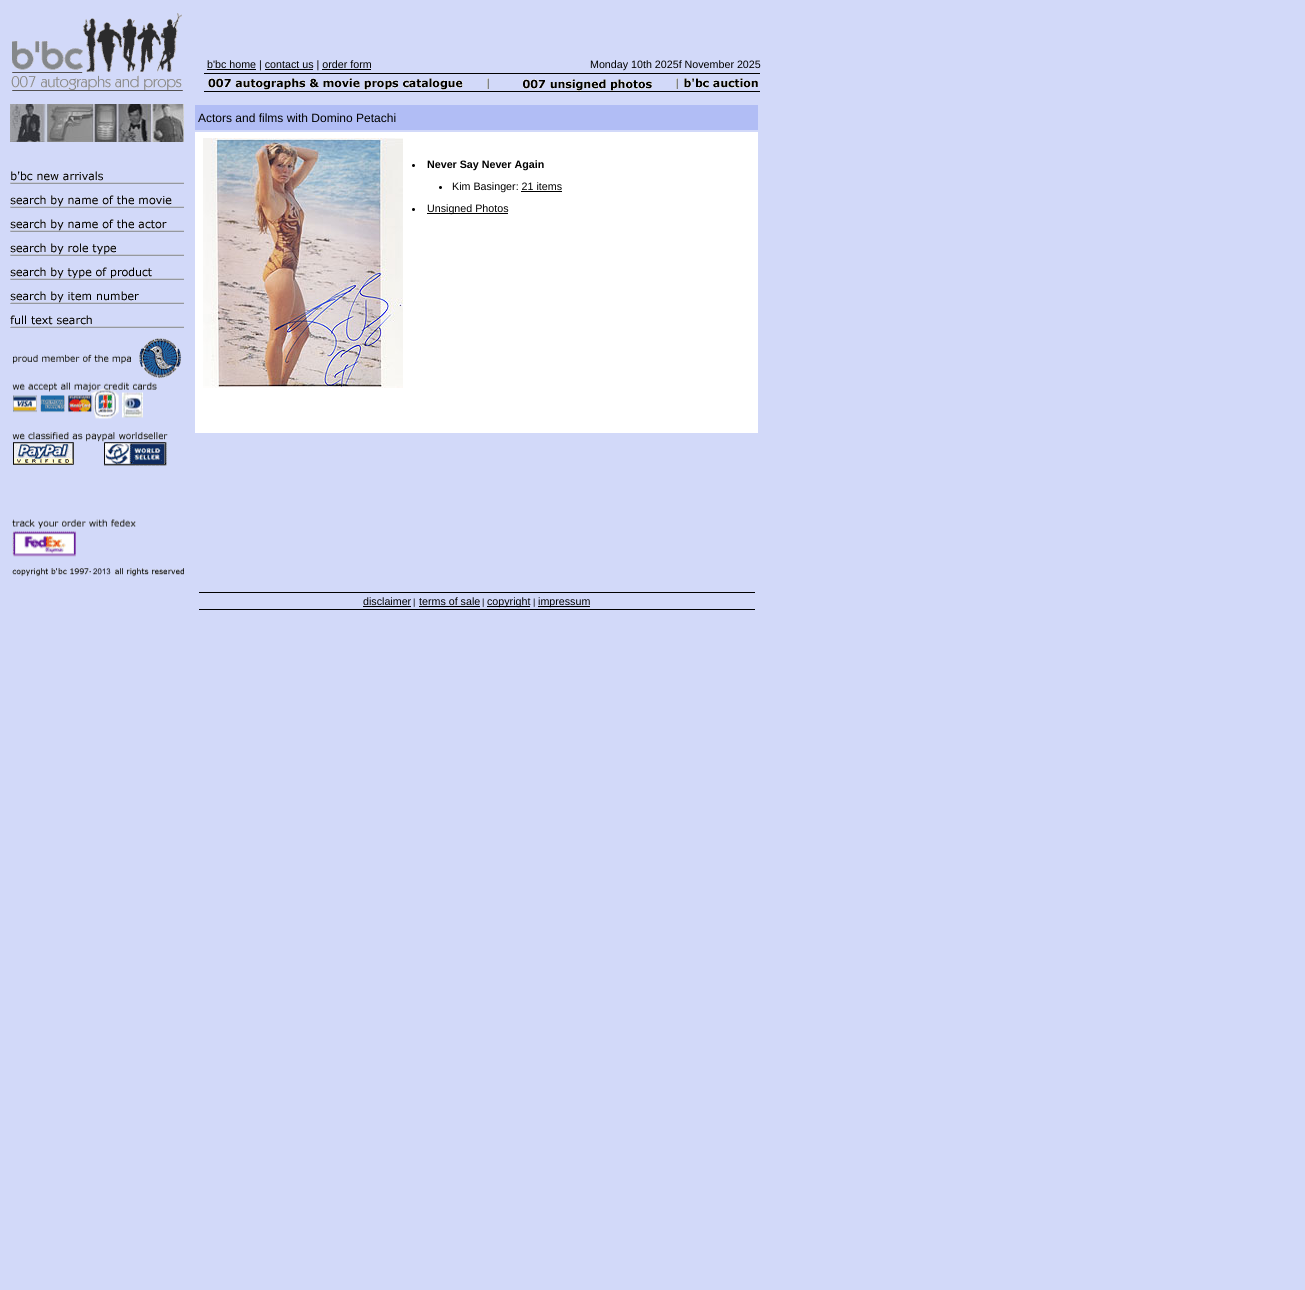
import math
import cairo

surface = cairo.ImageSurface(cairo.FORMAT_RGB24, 1305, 1290)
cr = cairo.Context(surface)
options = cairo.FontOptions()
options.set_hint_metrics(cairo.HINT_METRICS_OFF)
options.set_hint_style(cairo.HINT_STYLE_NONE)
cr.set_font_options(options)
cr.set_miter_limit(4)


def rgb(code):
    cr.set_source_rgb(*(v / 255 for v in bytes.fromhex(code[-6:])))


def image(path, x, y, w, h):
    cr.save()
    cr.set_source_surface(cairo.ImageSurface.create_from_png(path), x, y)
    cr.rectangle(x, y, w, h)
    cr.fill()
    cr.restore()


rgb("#d2d9f9")
cr.paint()
image("img/1.png", 11, 13, 172, 78)
image("img/2.png", 10, 104, 174, 38)
image("img/3.png", 10, 171, 174, 13)
image("img/4.png", 10, 195, 174, 13)
image("img/5.png", 10, 219, 174, 13)
image("img/6.png", 10, 243, 174, 13)
image("img/7.png", 10, 267, 174, 13)
image("img/8.png", 10, 291, 174, 13)
image("img/9.png", 10, 315, 174, 13)
image("img/10.png", 12, 338, 172, 239)
for x, y, w, h, color in [
    (207, 69, 49, 1, "#000000"),
    (265, 69, 48, 1, "#000000"),
    (322, 69, 49, 1, "#000000"),
    (204, 73, 556, 1, "#000000"),
]:
    rgb(color)
    cr.rectangle(x, y, w, h)
    cr.fill()
image("img/11.png", 208, 78, 255, 12)
image("img/12.png", 487, 78, 2, 11)
image("img/13.png", 523, 79, 129, 12)
image("img/12.png", 676, 78, 2, 11)
image("img/14.png", 684, 78, 74, 10)
for x, y, w, h, color in [
    (204, 91, 556, 1, "#000000"),
    (195, 105, 563, 25, "#b1bdf5"),
    (195, 132, 563, 301, "#ffffff"),
]:
    rgb(color)
    cr.rectangle(x, y, w, h)
    cr.fill()
image("img/15.png", 203, 138, 200, 250)
rgb("#000000")
cr.arc(413.5, 165.5, 1.5, 0, 2 * math.pi)
cr.fill()
cr.arc(440.5, 187.5, 1.5, 0, 2 * math.pi)
cr.fill()
cr.rectangle(521, 191, 41, 1)
cr.fill()
cr.arc(413.5, 209.5, 1.5, 0, 2 * math.pi)
cr.fill()
for x, y, w, h, color in [
    (427, 213, 81, 1, "#000000"),
    (199, 592, 556, 1, "#000000"),
    (363, 606, 48, 1, "#000000"),
    (419, 606, 61, 1, "#000000"),
    (487, 606, 43, 1, "#000000"),
    (538, 606, 52, 1, "#000000"),
    (199, 609, 556, 1, "#000000"),
]:
    rgb(color)
    cr.rectangle(x, y, w, h)
    cr.fill()
cr.select_font_face("Liberation Sans")
cr.set_font_size(10.7)
cr.move_to(207, 68)
cr.show_text("b'bc home | contact us | order form")
cr.move_to(590, 68)
cr.show_text("Monday 10th 2025f November 2025")
cr.set_font_size(12)
cr.move_to(198, 122)
cr.show_text("Actors and films with Domino Petachi")
cr.select_font_face("Liberation Sans", cairo.FONT_SLANT_NORMAL, cairo.FONT_WEIGHT_BOLD)
cr.set_font_size(10.7)
cr.move_to(427, 168)
cr.show_text("Never Say Never Again")
cr.select_font_face("Liberation Sans")
for x, y, s in [
    (452, 190, "Kim Basinger: 21 items"),
    (427, 212, "Unsigned Photos"),
    (363, 605, "disclaimer"),
]:
    cr.move_to(x, y)
    cr.show_text(s)
cr.set_font_size(9)
cr.move_to(413, 605)
cr.show_text("|")
cr.set_font_size(10.7)
cr.move_to(419, 605)
cr.show_text("terms of sale")
cr.set_font_size(9)
cr.move_to(482, 605)
cr.show_text("|")
cr.set_font_size(10.7)
cr.move_to(487, 605)
cr.show_text("copyright")
cr.set_font_size(9)
cr.move_to(533, 605)
cr.show_text("|")
cr.set_font_size(10.7)
cr.move_to(538, 605)
cr.show_text("impressum")
surface.write_to_png("page.png")
